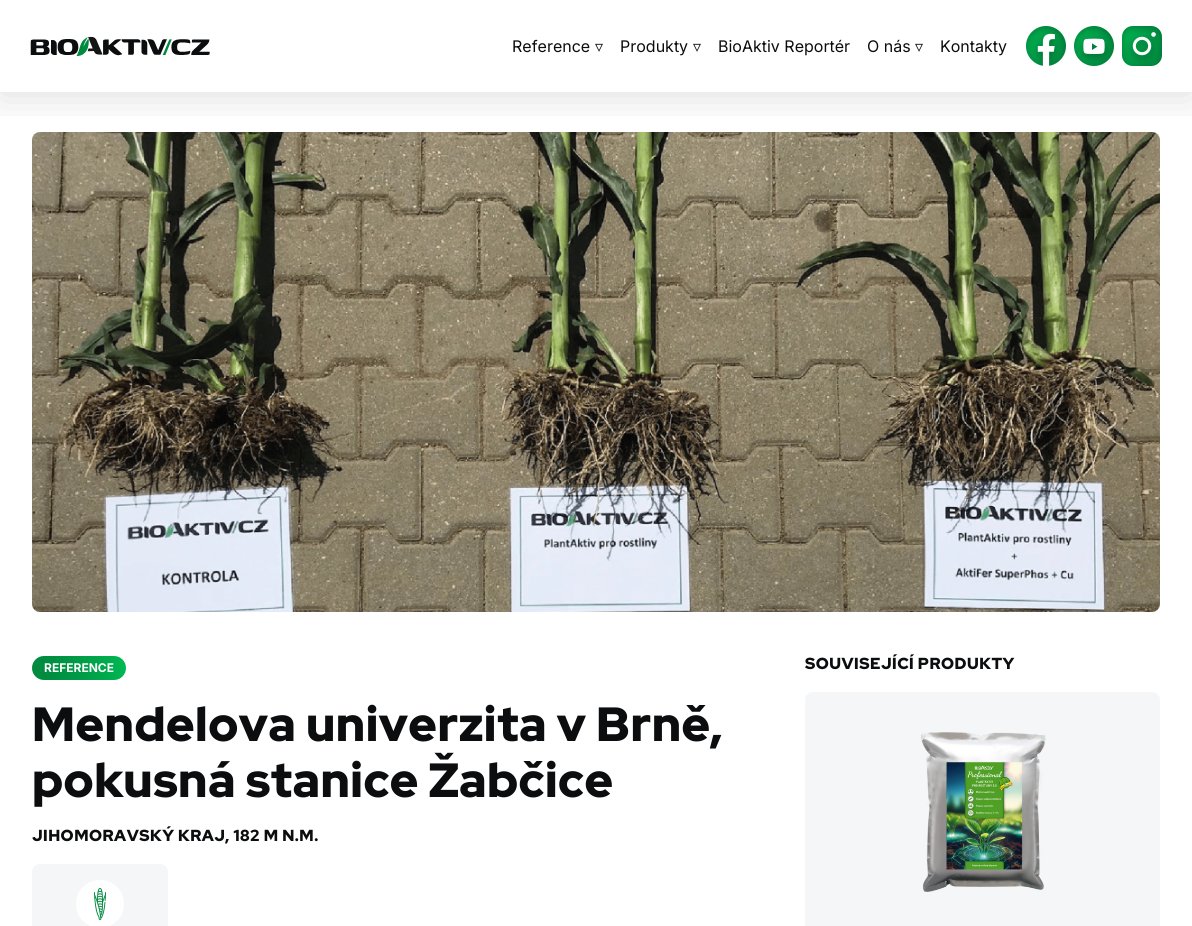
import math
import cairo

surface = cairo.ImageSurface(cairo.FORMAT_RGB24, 1192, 926)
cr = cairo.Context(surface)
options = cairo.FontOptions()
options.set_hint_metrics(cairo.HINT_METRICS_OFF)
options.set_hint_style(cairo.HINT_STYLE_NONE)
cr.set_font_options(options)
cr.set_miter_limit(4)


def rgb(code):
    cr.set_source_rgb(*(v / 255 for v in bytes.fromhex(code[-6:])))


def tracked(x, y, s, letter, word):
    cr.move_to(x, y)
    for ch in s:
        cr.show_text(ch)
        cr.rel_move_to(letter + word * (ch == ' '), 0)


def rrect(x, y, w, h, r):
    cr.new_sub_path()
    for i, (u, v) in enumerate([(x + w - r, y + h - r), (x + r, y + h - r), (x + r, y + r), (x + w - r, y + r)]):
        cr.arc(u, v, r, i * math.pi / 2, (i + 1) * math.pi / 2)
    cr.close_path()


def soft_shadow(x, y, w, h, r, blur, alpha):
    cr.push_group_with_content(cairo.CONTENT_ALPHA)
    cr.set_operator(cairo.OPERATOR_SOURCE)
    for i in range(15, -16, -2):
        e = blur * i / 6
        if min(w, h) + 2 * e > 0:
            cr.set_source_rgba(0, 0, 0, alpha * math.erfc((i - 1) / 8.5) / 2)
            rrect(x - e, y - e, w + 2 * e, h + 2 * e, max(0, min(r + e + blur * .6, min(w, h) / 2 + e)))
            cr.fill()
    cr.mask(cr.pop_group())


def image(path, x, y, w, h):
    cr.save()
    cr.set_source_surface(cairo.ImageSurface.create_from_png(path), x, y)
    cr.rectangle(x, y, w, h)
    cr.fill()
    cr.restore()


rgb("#ffffff")
cr.paint()
image("img/5.png", 32, 132, 1128, 480)
cr.save()
cr.rectangle(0, 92, 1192, 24)
cr.clip()
rgb("#0b0d0e")
soft_shadow(0, 2, 1192, 92, 0, 20, 0.15)
cr.restore()
image("img/1.png", 30, 36, 180, 20)
image("img/2.png", 1026, 26, 40, 40)
image("img/3.png", 1074, 26, 40, 40)
image("img/4.png", 1122, 26, 40, 40)
gradient = cairo.LinearGradient(31, 674, 127, 662)
gradient.add_color_stop_rgba(0, 0, 0.541, 0.247, 1)
gradient.add_color_stop_rgba(0.19, 0, 0.553, 0.251, 1)
gradient.add_color_stop_rgba(0.38, 0, 0.584, 0.267, 1)
gradient.add_color_stop_rgba(0.57, 0, 0.62, 0.282, 1)
gradient.add_color_stop_rgba(0.74, 0, 0.659, 0.298, 1)
gradient.add_color_stop_rgba(0.88, 0, 0.694, 0.314, 1)
gradient.add_color_stop_rgba(0.97, 0, 0.718, 0.325, 1)
gradient.add_color_stop_rgba(1, 0, 0.725, 0.329, 1)
cr.set_source(gradient)
rrect(32, 656, 94, 24, 12)
cr.fill()
rgb("#f4f6f7")
rrect(32, 864, 136, 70, 8)
cr.fill()
rgb("#ffffff")
cr.arc(100, 904, 24, 0, 2 * math.pi)
cr.fill()
image("img/6.png", 94, 888, 12, 32)
rgb("#f4f6f7")
rrect(805, 692, 355, 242, 8)
cr.fill()
image("img/7.png", 920, 732, 126, 160)
cr.select_font_face("Inter")
cr.set_font_size(16)
rgb("#0b0d0e")
cr.move_to(512, 52)
cr.show_text("Reference")
cr.select_font_face("DejaVu Sans")
cr.move_to(595, 52)
cr.show_text("▿")
cr.select_font_face("Inter")
cr.move_to(620, 52)
cr.show_text("Produkty")
cr.select_font_face("DejaVu Sans")
cr.move_to(693, 52)
cr.show_text("▿")
cr.select_font_face("Inter")
cr.move_to(718, 52)
cr.show_text("BioAktiv Reportér")
cr.move_to(867, 52)
cr.show_text("O nás")
cr.select_font_face("DejaVu Sans")
cr.move_to(915, 52)
cr.show_text("▿")
cr.select_font_face("Inter")
cr.move_to(940, 52)
cr.show_text("Kontakty")
cr.select_font_face("Inter", cairo.FONT_SLANT_NORMAL, cairo.FONT_WEIGHT_BOLD)
cr.set_font_size(12)
rgb("#ffffff")
cr.move_to(44, 672)
cr.show_text("REFERENCE")
cr.select_font_face("Red Hat Display Black")
cr.set_font_size(48)
rgb("#0b0d0e")
tracked(32, 741, "Mendelova univerzita v Brně,", 0.5, 0)
tracked(32, 797, "pokusná stanice Žabčice", 0.5, 0)
cr.set_font_size(16)
tracked(32, 841, "JIHOMORAVSKÝ KRAJ, 182 M N.M.", 0.5, 0)
tracked(805, 669, "SOUVISEJÍCÍ PRODUKTY", 0.5, 0)
surface.write_to_png("page.png")
